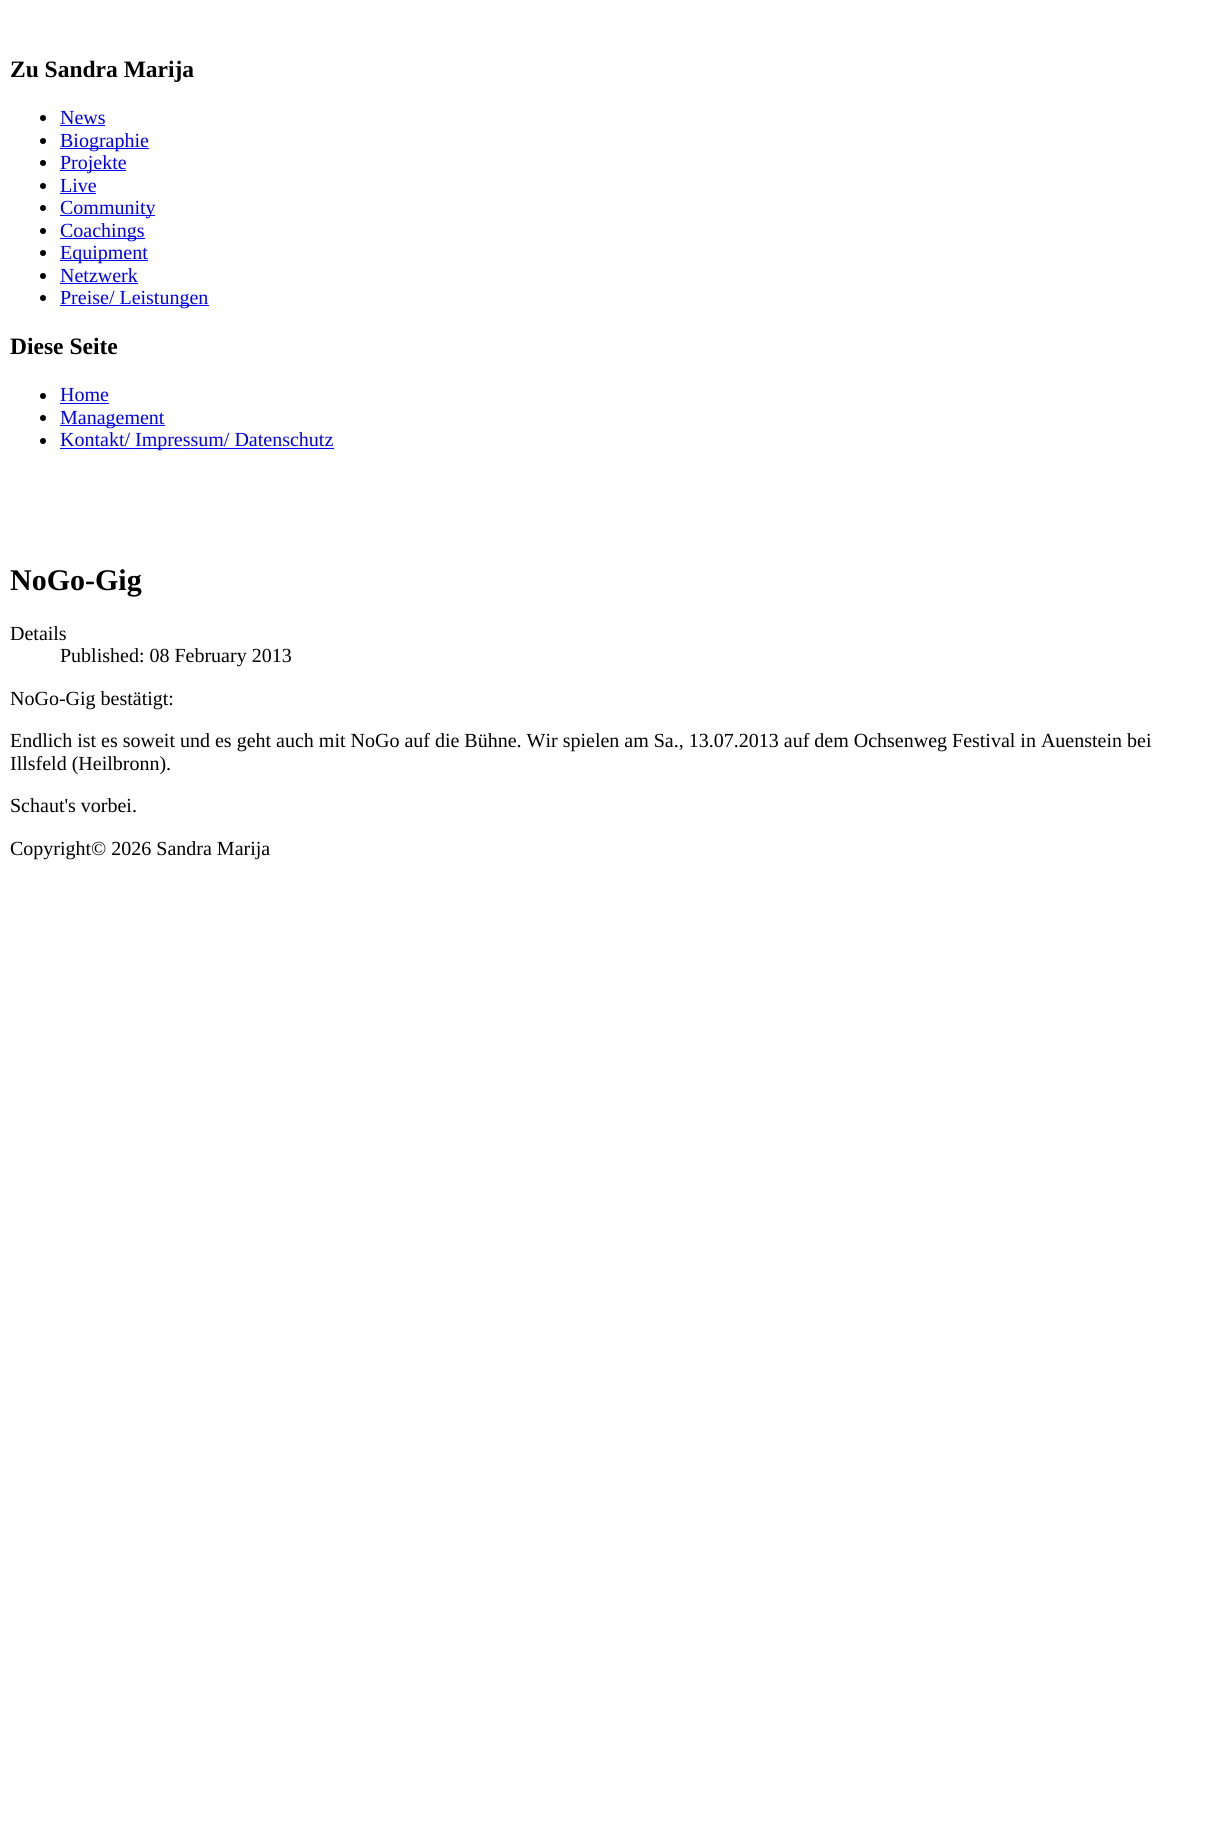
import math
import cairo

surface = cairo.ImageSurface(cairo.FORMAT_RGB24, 1210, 1826)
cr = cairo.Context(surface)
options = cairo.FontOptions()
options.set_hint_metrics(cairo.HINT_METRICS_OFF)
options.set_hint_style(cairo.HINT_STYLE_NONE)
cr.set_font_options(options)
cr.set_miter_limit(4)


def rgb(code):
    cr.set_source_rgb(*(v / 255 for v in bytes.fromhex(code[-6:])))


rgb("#ffffff")
cr.paint()
rgb("#000000")
cr.arc(43, 118, 3, 0, 2 * math.pi)
cr.fill()
rgb("#0000ee")
cr.rectangle(60, 125, 45, 1)
cr.fill()
rgb("#000000")
cr.arc(43, 141, 3, 0, 2 * math.pi)
cr.fill()
rgb("#0000ee")
cr.rectangle(60, 148, 89, 1)
cr.fill()
rgb("#000000")
cr.arc(43, 163, 3, 0, 2 * math.pi)
cr.fill()
rgb("#0000ee")
cr.rectangle(60, 170, 66, 1)
cr.fill()
rgb("#000000")
cr.arc(43, 186, 3, 0, 2 * math.pi)
cr.fill()
rgb("#0000ee")
cr.rectangle(60, 193, 36, 1)
cr.fill()
rgb("#000000")
cr.arc(43, 208, 3, 0, 2 * math.pi)
cr.fill()
rgb("#0000ee")
cr.rectangle(60, 215, 95, 1)
cr.fill()
rgb("#000000")
cr.arc(43, 231, 3, 0, 2 * math.pi)
cr.fill()
rgb("#0000ee")
cr.rectangle(60, 238, 85, 1)
cr.fill()
rgb("#000000")
cr.arc(43, 253, 3, 0, 2 * math.pi)
cr.fill()
rgb("#0000ee")
cr.rectangle(60, 260, 88, 1)
cr.fill()
rgb("#000000")
cr.arc(43, 276, 3, 0, 2 * math.pi)
cr.fill()
rgb("#0000ee")
cr.rectangle(60, 283, 78, 1)
cr.fill()
rgb("#000000")
cr.arc(43, 298, 3, 0, 2 * math.pi)
cr.fill()
rgb("#0000ee")
cr.rectangle(60, 305, 149, 1)
cr.fill()
rgb("#000000")
cr.arc(43, 396, 3, 0, 2 * math.pi)
cr.fill()
rgb("#0000ee")
cr.rectangle(60, 403, 49, 1)
cr.fill()
rgb("#000000")
cr.arc(43, 418, 3, 0, 2 * math.pi)
cr.fill()
rgb("#0000ee")
cr.rectangle(60, 425, 105, 1)
cr.fill()
rgb("#000000")
cr.arc(43, 441, 3, 0, 2 * math.pi)
cr.fill()
rgb("#0000ee")
cr.rectangle(60, 448, 274, 1)
cr.fill()
cr.select_font_face("Liberation Serif", cairo.FONT_SLANT_NORMAL, cairo.FONT_WEIGHT_BOLD)
cr.set_font_size(23.5)
rgb("#000000")
cr.move_to(10, 77)
cr.show_text("Zu Sandra Marija")
cr.select_font_face("Liberation Serif")
cr.set_font_size(20)
rgb("#0000ee")
for x, y, s in [
    (60, 124, "News"),
    (60, 147, "Biographie"),
    (60, 169, "Projekte"),
    (60, 192, "Live"),
    (60, 214, "Community"),
    (60, 237, "Coachings"),
    (60, 259, "Equipment"),
    (60, 282, "Netzwerk"),
    (60, 304, "Preise/ Leistungen"),
]:
    cr.move_to(x, y)
    cr.show_text(s)
cr.select_font_face("Liberation Serif", cairo.FONT_SLANT_NORMAL, cairo.FONT_WEIGHT_BOLD)
cr.set_font_size(23.5)
rgb("#000000")
cr.move_to(10, 354)
cr.show_text("Diese Seite")
cr.select_font_face("Liberation Serif")
cr.set_font_size(20)
rgb("#0000ee")
for x, y, s in [
    (60, 401, "Home"),
    (60, 424, "Management"),
    (60, 446, "Kontakt/ Impressum/ Datenschutz"),
]:
    cr.move_to(x, y)
    cr.show_text(s)
cr.select_font_face("Liberation Serif", cairo.FONT_SLANT_NORMAL, cairo.FONT_WEIGHT_BOLD)
cr.set_font_size(30)
rgb("#000000")
cr.move_to(10, 590)
cr.show_text("NoGo-Gig")
cr.select_font_face("Liberation Serif")
cr.set_font_size(20)
for x, y, s in [
    (10, 640, "Details"),
    (60, 662, "Published: 08 February 2013"),
    (10, 705, "NoGo-Gig bestätigt:"),
    (10, 747, "Endlich ist es soweit und es geht auch mit NoGo auf die Bühne. Wir spielen am Sa., 13.07.2013 auf dem Ochsenweg Festival in Auenstein bei"),
    (10, 770, "Illsfeld (Heilbronn)."),
    (10, 812, "Schaut's vorbei."),
    (10, 855, "Copyright© 2026 Sandra Marija"),
]:
    cr.move_to(x, y)
    cr.show_text(s)
surface.write_to_png("page.png")
